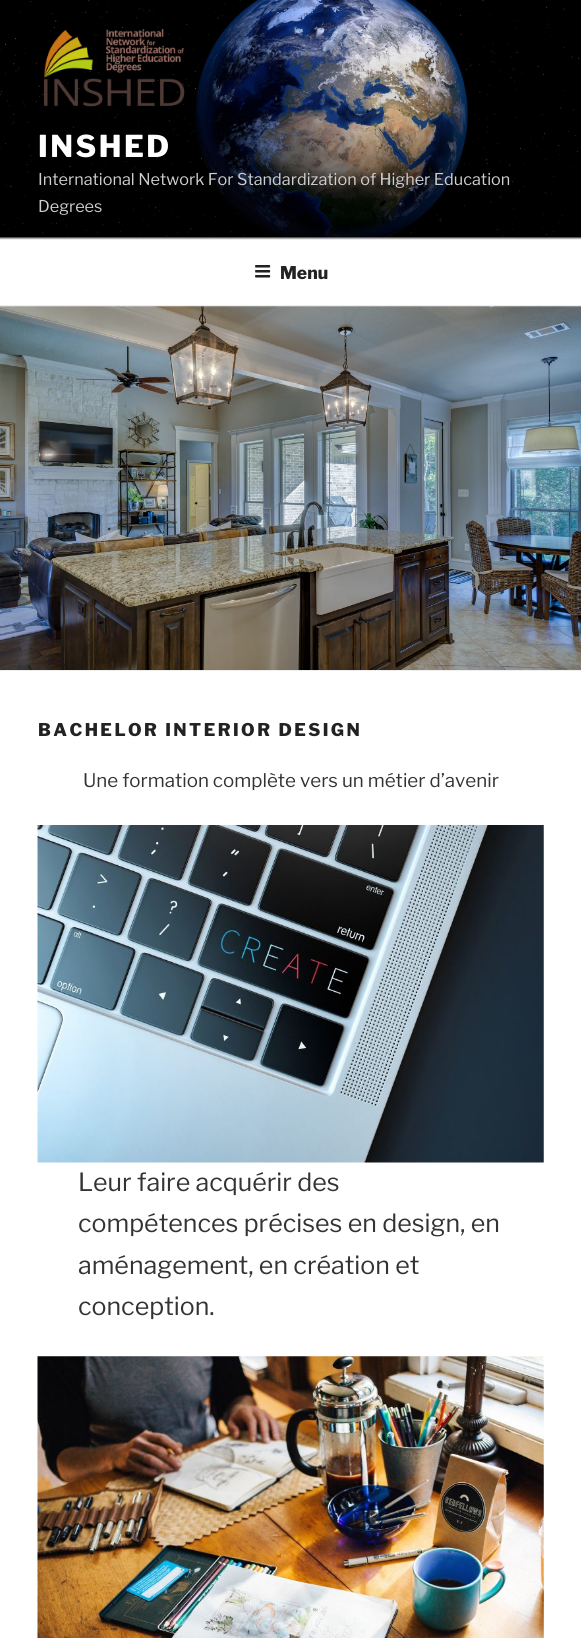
import math
import cairo

surface = cairo.ImageSurface(cairo.FORMAT_RGB24, 581, 1638)
cr = cairo.Context(surface)
options = cairo.FontOptions()
options.set_hint_metrics(cairo.HINT_METRICS_OFF)
options.set_hint_style(cairo.HINT_STYLE_NONE)
cr.set_font_options(options)
cr.set_miter_limit(4)


def rgb(code):
    cr.set_source_rgb(*(v / 255 for v in bytes.fromhex(code[-6:])))


def tracked(x, y, s, letter, word):
    cr.move_to(x, y)
    for ch in s:
        cr.show_text(ch)
        cr.rel_move_to(letter + word * (ch == ' '), 0)


def image(path, x, y, w, h):
    cr.save()
    cr.set_source_surface(cairo.ImageSurface.create_from_png(path), x, y)
    cr.rectangle(x, y, w, h)
    cr.fill()
    cr.restore()


rgb("#ffffff")
cr.paint()
rgb("#fafafa")
cr.rectangle(0, 237, 581, 2)
cr.fill()
image("img/1.png", 0, 0, 581, 238)
gradient = cairo.LinearGradient(291, 0, 291, 239)
gradient.add_color_stop_rgba(0, 0, 0, 0, 0)
gradient.add_color_stop_rgba(0.75, 0, 0, 0, 0.3)
gradient.add_color_stop_rgba(1, 0, 0, 0, 0.3)
cr.set_source(gradient)
cr.rectangle(0, 13, 581, 226)
cr.fill()
image("img/2.png", 43, 28, 142, 79)
rgb("#eeeeee")
cr.rectangle(0, 239, 581, 1)
cr.fill()
cr.rectangle(0, 305, 581, 1)
cr.fill()
image("img/3.png", 255, 265, 16, 13)
cr.rectangle(0, 670, 581, 1)
cr.fill()
image("img/4.png", 0, 306, 581, 364)
image("img/5.png", 37, 825, 507, 338)
image("img/6.png", 37, 1356, 507, 282)
cr.select_font_face("Libre Franklin Thin")
cr.set_font_size(30)
rgb("#ffffff")
tracked(38, 157, "INSHED", 2.5, 0)
cr.select_font_face("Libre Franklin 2 Thin")
cr.set_font_size(16.25)
rgb("#d0cfd0")
cr.move_to(38, 185)
cr.show_text("International Network For Standardization of Higher Education")
cr.move_to(38, 212)
cr.show_text("Degrees")
cr.select_font_face("Libre Franklin Thin")
cr.set_font_size(17.5)
rgb("#222222")
cr.move_to(280, 279)
cr.show_text("Menu")
tracked(38, 736, "BACHELOR INTERIOR DESIGN", 2.45, 0)
cr.select_font_face("Libre Franklin 2 Thin")
cr.set_font_size(18.75)
rgb("#333333")
cr.move_to(83, 787)
cr.show_text("Une formation complète vers un métier d’avenir")
cr.set_font_size(25)
for x, y, s in [
    (78, 1191, "Leur faire acquérir des"),
    (78, 1232, "compétences précises en design, en"),
    (78, 1274, "aménagement, en création et"),
    (78, 1315, "conception."),
]:
    cr.move_to(x, y)
    cr.show_text(s)
surface.write_to_png("page.png")
